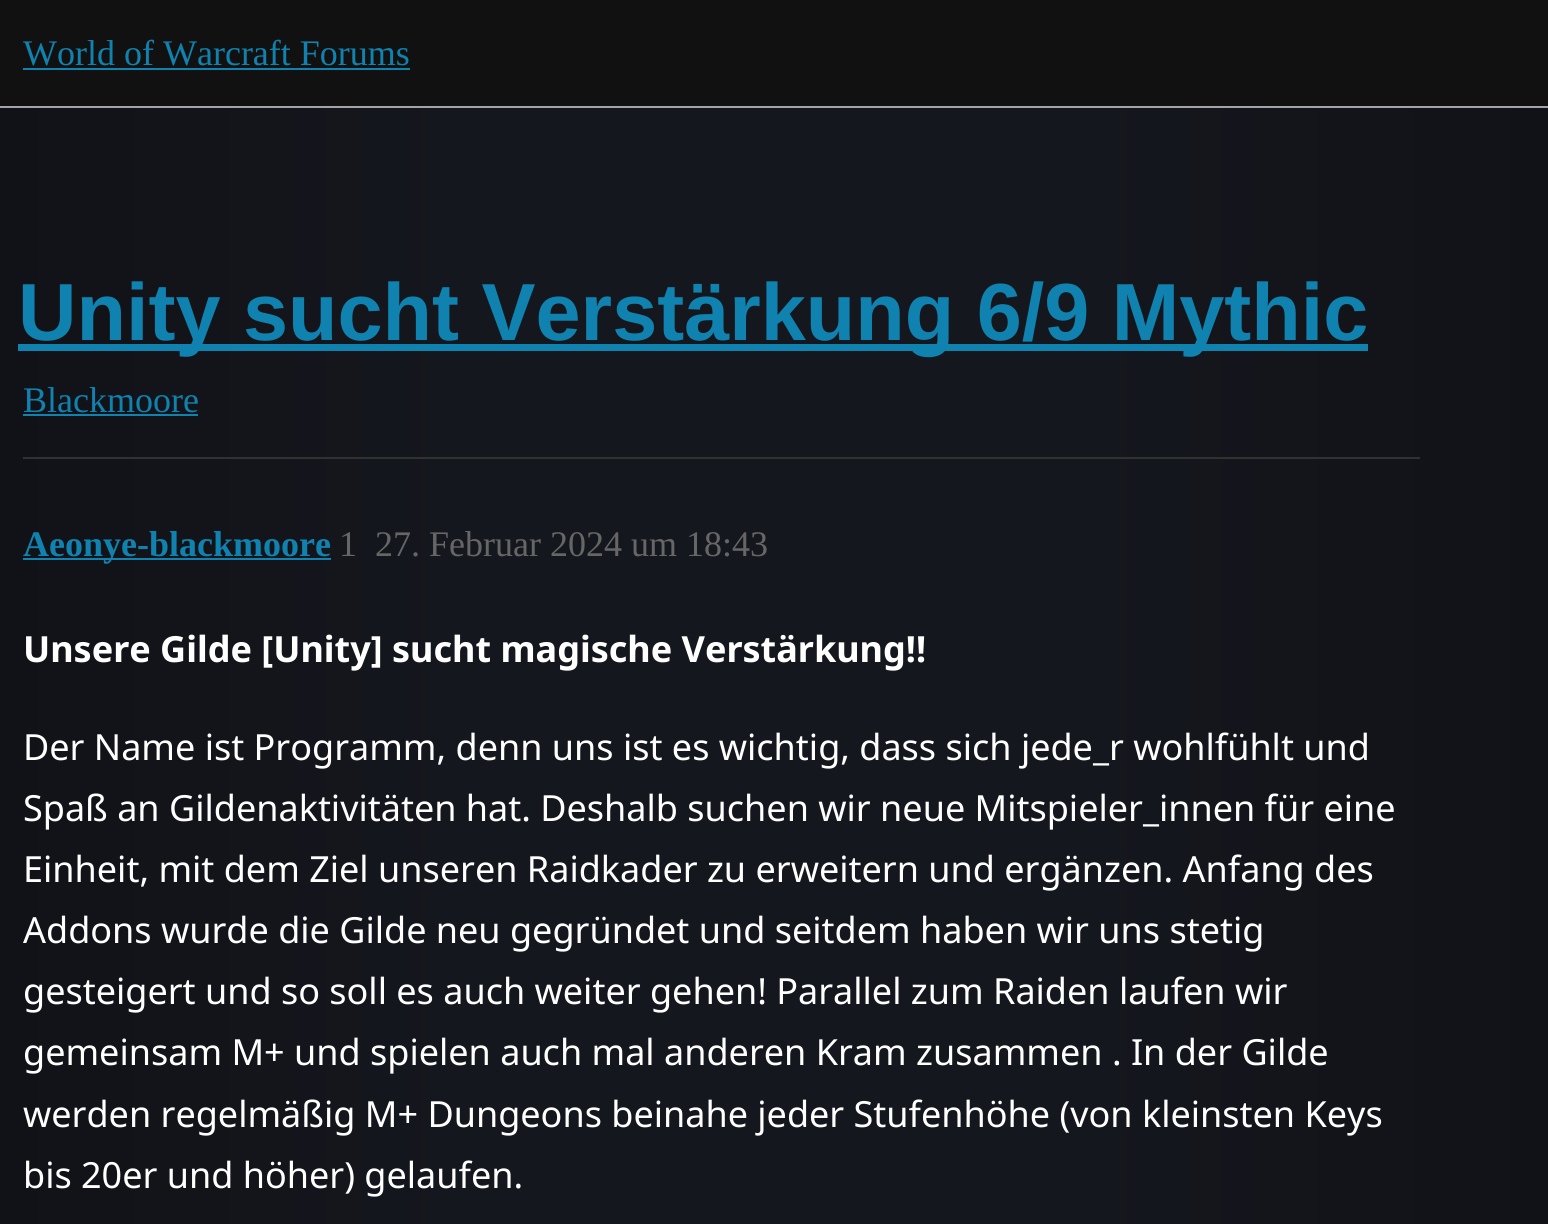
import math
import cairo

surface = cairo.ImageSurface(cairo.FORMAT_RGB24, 1548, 1224)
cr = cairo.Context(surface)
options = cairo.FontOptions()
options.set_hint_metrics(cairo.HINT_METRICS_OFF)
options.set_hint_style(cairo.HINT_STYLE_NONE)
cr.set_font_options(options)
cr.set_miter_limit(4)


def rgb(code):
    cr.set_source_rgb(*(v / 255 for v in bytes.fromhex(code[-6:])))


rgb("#ffffff")
cr.paint()
gradient = cairo.LinearGradient(0, 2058, 1548, 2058)
gradient.add_color_stop_rgba(0, 0.067, 0.071, 0.09, 1)
gradient.add_color_stop_rgba(0.3, 0.082, 0.09, 0.118, 1)
gradient.add_color_stop_rgba(0.7, 0.082, 0.09, 0.118, 1)
gradient.add_color_stop_rgba(1, 0.067, 0.071, 0.09, 1)
cr.set_source(gradient)
cr.rectangle(0, 108, 1548, 1116)
cr.fill()
for x, y, w, h, color in [
    (0, 0, 1548, 106, "#111111"),
    (0, 106, 1548, 2, "#a4a4a4"),
    (23, 68, 387, 2, "#0f82af"),
    (18, 344, 1350, 7, "#0f82af"),
    (23, 414, 175, 2, "#0f82af"),
    (23, 457, 1397, 2, "#313131"),
    (23, 558, 308, 2, "#0f82af"),
]:
    rgb(color)
    cr.rectangle(x, y, w, h)
    cr.fill()
cr.select_font_face("Liberation Serif")
cr.set_font_size(36)
cr.move_to(23, 65)
cr.show_text("World of Warcraft Forums")
cr.select_font_face("Liberation Sans", cairo.FONT_SLANT_NORMAL, cairo.FONT_WEIGHT_BOLD)
cr.set_font_size(81)
cr.move_to(18, 340)
cr.show_text("Unity sucht Verstärkung 6/9 Mythic")
cr.select_font_face("Liberation Serif")
cr.set_font_size(36)
cr.move_to(23, 412)
cr.show_text("Blackmoore")
cr.select_font_face("Liberation Serif", cairo.FONT_SLANT_NORMAL, cairo.FONT_WEIGHT_BOLD)
cr.move_to(23, 556)
cr.show_text("Aeonye-blackmoore")
cr.select_font_face("Liberation Serif")
rgb("#666666")
cr.move_to(339, 556)
cr.show_text("1")
cr.move_to(375, 556)
cr.show_text("27. Februar 2024 um 18:43")
cr.select_font_face("Noto Sans", cairo.FONT_SLANT_NORMAL, cairo.FONT_WEIGHT_BOLD)
rgb("#ffffff")
cr.move_to(23, 662)
cr.show_text("Unsere Gilde [Unity] sucht magische Verstärkung!!")
cr.select_font_face("Noto Sans")
for x, y, s in [
    (23, 760, "Der Name ist Programm, denn uns ist es wichtig, dass sich jede_r wohlfühlt und"),
    (23, 821, "Spaß an Gildenaktivitäten hat. Deshalb suchen wir neue Mitspieler_innen für eine"),
    (23, 882, "Einheit, mit dem Ziel unseren Raidkader zu erweitern und ergänzen. Anfang des"),
    (23, 943, "Addons wurde die Gilde neu gegründet und seitdem haben wir uns stetig"),
    (23, 1004, "gesteigert und so soll es auch weiter gehen! Parallel zum Raiden laufen wir"),
    (23, 1065, "gemeinsam M+ und spielen auch mal anderen Kram zusammen . In der Gilde"),
    (23, 1127, "werden regelmäßig M+ Dungeons beinahe jeder Stufenhöhe (von kleinsten Keys"),
    (23, 1188, "bis 20er und höher) gelaufen."),
]:
    cr.move_to(x, y)
    cr.show_text(s)
surface.write_to_png("page.png")
